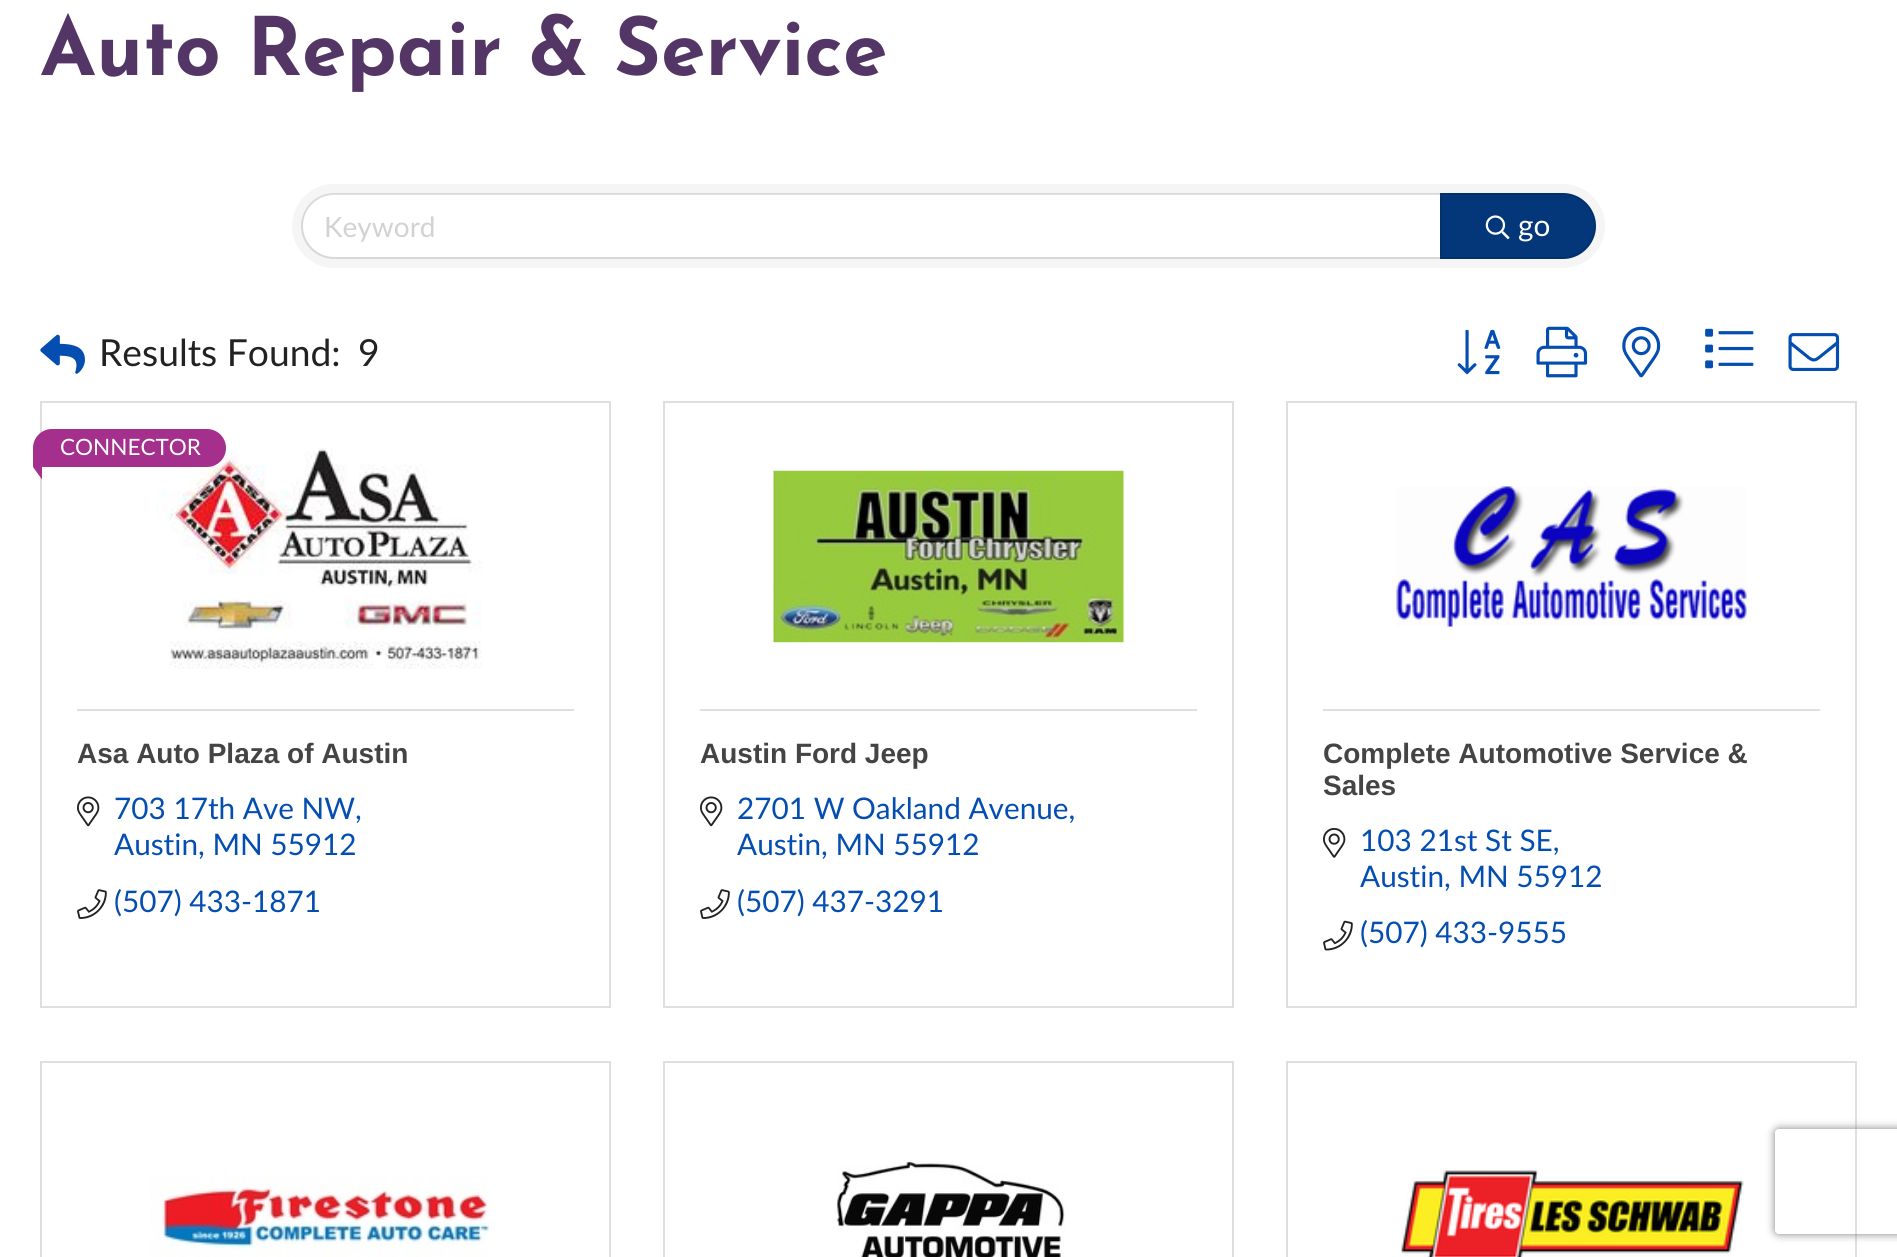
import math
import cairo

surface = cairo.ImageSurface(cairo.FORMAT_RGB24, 1897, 1257)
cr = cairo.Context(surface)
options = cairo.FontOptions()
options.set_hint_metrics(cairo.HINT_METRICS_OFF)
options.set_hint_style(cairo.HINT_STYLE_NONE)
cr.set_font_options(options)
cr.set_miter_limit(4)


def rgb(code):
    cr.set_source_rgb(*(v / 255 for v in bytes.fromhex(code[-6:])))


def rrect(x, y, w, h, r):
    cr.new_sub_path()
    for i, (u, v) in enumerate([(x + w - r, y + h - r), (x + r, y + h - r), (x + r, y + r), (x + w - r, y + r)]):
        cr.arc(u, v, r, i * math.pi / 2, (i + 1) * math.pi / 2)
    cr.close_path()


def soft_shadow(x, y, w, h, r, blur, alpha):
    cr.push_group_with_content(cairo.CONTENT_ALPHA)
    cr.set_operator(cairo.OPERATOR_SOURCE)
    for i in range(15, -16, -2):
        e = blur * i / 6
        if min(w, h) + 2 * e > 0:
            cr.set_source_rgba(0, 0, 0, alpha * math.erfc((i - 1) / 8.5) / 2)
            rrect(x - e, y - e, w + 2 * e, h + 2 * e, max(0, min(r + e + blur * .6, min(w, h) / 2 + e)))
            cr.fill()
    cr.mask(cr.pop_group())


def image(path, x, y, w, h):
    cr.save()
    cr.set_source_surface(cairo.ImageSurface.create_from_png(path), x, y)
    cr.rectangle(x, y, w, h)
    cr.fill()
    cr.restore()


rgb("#ffffff")
cr.paint()
rgb("#f5f5f5")
rrect(292, 184, 1313, 84, 42)
cr.fill()
rgb("#ffffff")
cr.new_path()
cr.move_to(334.5, 194)
cr.line_to(1440, 194)
cr.line_to(1440, 257)
cr.line_to(334.5, 257)
cr.curve_to(317, 257, 303, 243, 303, 225.5)
cr.curve_to(303, 208, 317, 194, 334.5, 194)
cr.close_path()
cr.fill()
cr.new_path()
cr.move_to(334, 194)
cr.line_to(1441, 194)
cr.line_to(1441, 258)
cr.line_to(334, 258)
cr.curve_to(316.5, 258, 302, 243.5, 302, 226)
cr.curve_to(302, 208.5, 316.5, 194, 334, 194)
cr.close_path()
cr.set_source_rgba(0, 0, 0, 0.12)
cr.stroke()
rgb("#03377a")
cr.new_path()
cr.move_to(1440, 193)
cr.line_to(1563, 193)
cr.curve_to(1581, 193, 1596, 208, 1596, 226)
cr.curve_to(1596, 244, 1581, 259, 1563, 259)
cr.line_to(1440, 259)
cr.close_path()
cr.fill()
cr.new_path()
cr.move_to(1441, 194)
cr.line_to(1563, 194)
cr.curve_to(1580.5, 194, 1595, 208.5, 1595, 226)
cr.curve_to(1595, 243.5, 1580.5, 258, 1563, 258)
cr.line_to(1441, 258)
cr.close_path()
cr.set_source_rgba(0, 0, 0, 0.12)
cr.stroke()
image("img/1.png", 1485, 215, 25, 25)
image("img/2.png", 40, 334, 45, 40)
image("img/3.png", 1457, 329, 44, 46)
image("img/4.png", 1536, 326, 52, 52)
image("img/5.png", 1622, 326, 39, 52)
image("img/6.png", 1705, 328, 49, 41)
image("img/7.png", 1788, 333, 52, 38)
cr.rectangle(41, 402, 569, 605)
rgb("#dfdfdf")
cr.stroke()
image("img/8.png", 156, 448, 326, 221)
rgb("#a42f8d")
cr.new_path()
cr.move_to(52, 429)
cr.line_to(207, 429)
cr.curve_to(217.5, 429, 226, 437.5, 226, 448)
cr.curve_to(226, 458.5, 217.5, 467, 207, 467)
cr.line_to(34, 467)
cr.curve_to(33.5, 467, 33, 466.5, 33, 466)
cr.line_to(33, 448)
cr.curve_to(33, 437.5, 41.5, 429, 52, 429)
cr.close_path()
cr.fill()
cr.new_path()
cr.move_to(42, 455)
cr.line_to(42, 479.5)
cr.line_to(33, 467)
cr.close_path()
cr.fill()
rgb("#dfdfdf")
cr.rectangle(77, 709, 497, 2)
cr.fill()
image("img/9.png", 77, 796, 23, 31)
image("img/10.png", 77, 889, 30, 30)
cr.rectangle(664, 402, 569, 605)
cr.stroke()
image("img/11.png", 773, 470, 351, 173)
cr.rectangle(700, 709, 497, 2)
cr.fill()
image("img/9.png", 700, 796, 23, 31)
image("img/10.png", 700, 889, 30, 30)
cr.rectangle(1287, 402, 569, 605)
cr.stroke()
image("img/12.png", 1396, 486, 351, 141)
cr.rectangle(1323, 709, 497, 2)
cr.fill()
image("img/13.png", 1323, 828, 23, 30)
image("img/14.png", 1323, 920, 30, 31)
cr.rectangle(41, 1062, 569, 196)
cr.stroke()
image("img/15.png", 150, 1176, 345, 81)
cr.rectangle(664, 1062, 569, 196)
cr.stroke()
image("img/16.png", 835, 1160, 230, 97)
cr.rectangle(1287, 1062, 569, 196)
cr.stroke()
image("img/17.png", 1401, 1170, 343, 87)
cr.save()
cr.set_fill_rule(cairo.FILL_RULE_EVEN_ODD)
cr.new_path()
cr.move_to(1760, 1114)
cr.line_to(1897, 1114)
cr.line_to(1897, 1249)
cr.line_to(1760, 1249)
cr.close_path()
cr.move_to(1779, 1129)
cr.line_to(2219, 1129)
cr.curve_to(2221, 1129, 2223, 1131, 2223, 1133)
cr.line_to(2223, 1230)
cr.curve_to(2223, 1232, 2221, 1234, 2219, 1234)
cr.line_to(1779, 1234)
cr.curve_to(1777, 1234, 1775, 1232, 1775, 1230)
cr.line_to(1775, 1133)
cr.curve_to(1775, 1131, 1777, 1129, 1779, 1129)
cr.close_path()
cr.clip()
rgb("#808080")
soft_shadow(1775, 1129, 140, 105, 4, 4.5, 1)
cr.restore()
cr.select_font_face("Josefin Sans", cairo.FONT_SLANT_NORMAL, cairo.FONT_WEIGHT_BOLD)
cr.set_font_size(80.5)
rgb("#533666")
cr.move_to(40, 75)
cr.show_text("Auto Repair & Service")
cr.select_font_face("Lato")
cr.set_font_size(28)
rgb("#d2d2d2")
cr.move_to(324, 237)
cr.show_text("Keyword")
cr.set_font_size(29.75)
rgb("#ffffff")
cr.move_to(1518, 236)
cr.show_text("go")
cr.set_font_size(37.25)
rgb("#222222")
cr.move_to(99, 366)
cr.show_text("Results Found:")
cr.move_to(358, 366)
cr.show_text("9")
cr.set_font_size(22.5)
rgb("#ffffff")
cr.move_to(60, 455)
cr.show_text("CONNECTOR")
cr.select_font_face("Liberation Sans", cairo.FONT_SLANT_NORMAL, cairo.FONT_WEIGHT_BOLD)
cr.set_font_size(28)
rgb("#444444")
cr.move_to(77, 763)
cr.show_text("Asa Auto Plaza of Austin")
cr.select_font_face("Lato")
cr.set_font_size(29.75)
rgb("#044eb1")
for x, y, s in [
    (114, 819, "703 17th Ave NW,"),
    (114, 855, "Austin, MN 55912"),
    (114, 912, "(507) 433-1871"),
]:
    cr.move_to(x, y)
    cr.show_text(s)
cr.select_font_face("Liberation Sans", cairo.FONT_SLANT_NORMAL, cairo.FONT_WEIGHT_BOLD)
cr.set_font_size(28)
rgb("#444444")
cr.move_to(700, 763)
cr.show_text("Austin Ford Jeep")
cr.select_font_face("Lato")
cr.set_font_size(29.75)
rgb("#044eb1")
for x, y, s in [
    (737, 819, "2701 W Oakland Avenue,"),
    (737, 855, "Austin, MN 55912"),
    (737, 912, "(507) 437-3291"),
]:
    cr.move_to(x, y)
    cr.show_text(s)
cr.select_font_face("Liberation Sans", cairo.FONT_SLANT_NORMAL, cairo.FONT_WEIGHT_BOLD)
cr.set_font_size(28)
rgb("#444444")
cr.move_to(1323, 763)
cr.show_text("Complete Automotive Service &")
cr.move_to(1323, 795)
cr.show_text("Sales")
cr.select_font_face("Lato")
cr.set_font_size(29.75)
rgb("#044eb1")
for x, y, s in [
    (1360, 851, "103 21st St SE,"),
    (1360, 887, "Austin, MN 55912"),
    (1360, 943, "(507) 433-9555"),
]:
    cr.move_to(x, y)
    cr.show_text(s)
surface.write_to_png("page.png")
